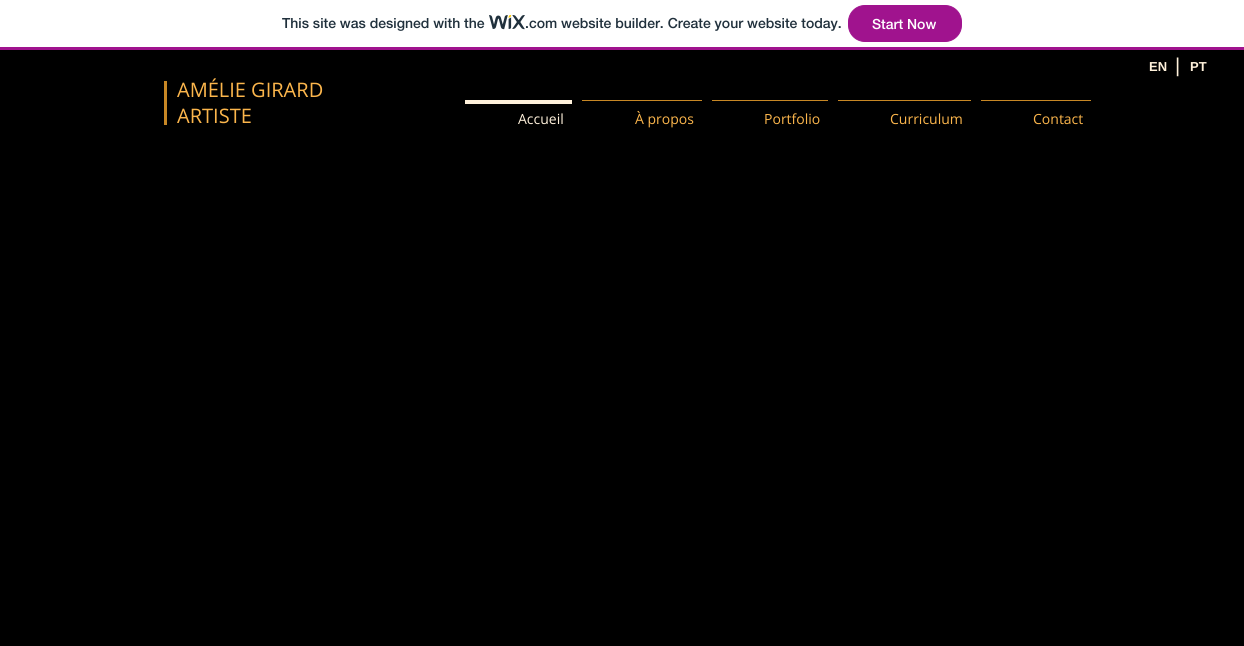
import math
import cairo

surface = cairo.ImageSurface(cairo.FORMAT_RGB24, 1244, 646)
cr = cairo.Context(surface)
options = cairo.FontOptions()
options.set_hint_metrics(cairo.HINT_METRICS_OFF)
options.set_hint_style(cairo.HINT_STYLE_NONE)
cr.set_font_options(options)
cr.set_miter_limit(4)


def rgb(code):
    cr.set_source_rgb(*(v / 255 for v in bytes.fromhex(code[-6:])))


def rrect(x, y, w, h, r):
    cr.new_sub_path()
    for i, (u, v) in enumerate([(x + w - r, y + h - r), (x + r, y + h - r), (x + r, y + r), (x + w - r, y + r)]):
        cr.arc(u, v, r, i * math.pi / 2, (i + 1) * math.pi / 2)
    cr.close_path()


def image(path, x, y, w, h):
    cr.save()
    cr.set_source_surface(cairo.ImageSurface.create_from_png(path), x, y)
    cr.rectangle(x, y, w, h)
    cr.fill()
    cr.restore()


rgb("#ffffff")
cr.paint()
rgb("#a0138e")
cr.rectangle(0, 47, 1244, 3)
cr.fill()
image("img/1.png", 489, 15, 36, 15)
rrect(848.5, 5.5, 113, 36, 16.5)
cr.fill_preserve()
cr.set_line_width(1)
cr.stroke()
for x, y, w, h, color in [
    (0, 50, 1244, 596, "#000000"),
    (164, 81, 3, 44, "#c78725"),
    (465, 100, 107, 4, "#fff1db"),
    (582, 100, 120, 1, "#c78725"),
    (712, 100, 116, 1, "#c78725"),
    (838, 100, 133, 1, "#c78725"),
    (981, 100, 110, 1, "#c78725"),
]:
    rgb(color)
    cr.rectangle(x, y, w, h)
    cr.fill()
cr.select_font_face("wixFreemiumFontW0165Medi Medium")
cr.set_font_size(14)
rgb("#20303c")
cr.move_to(282, 28)
cr.show_text("This site was designed with the")
cr.move_to(525, 28)
cr.show_text(".com website builder. Create your website today.")
rgb("#ffffff")
cr.move_to(872, 29)
cr.show_text("Start Now")
cr.select_font_face("Liberation Sans", cairo.FONT_SLANT_NORMAL, cairo.FONT_WEIGHT_BOLD)
cr.set_font_size(13)
rgb("#fff1db")
cr.move_to(1149, 71)
cr.show_text("EN")
cr.select_font_face("Liberation Sans")
cr.set_font_size(20)
cr.move_to(1175, 72)
cr.show_text("|")
cr.select_font_face("Liberation Sans", cairo.FONT_SLANT_NORMAL, cairo.FONT_WEIGHT_BOLD)
cr.set_font_size(13)
cr.move_to(1190, 71)
cr.show_text("PT")
cr.select_font_face("Open Sans")
cr.set_font_size(20)
rgb("#fcb64c")
cr.move_to(177, 97)
cr.show_text("AMÉLIE GIRARD")
cr.move_to(177, 123)
cr.show_text("ARTISTE")
cr.set_font_size(14)
rgb("#fff1db")
cr.move_to(518, 124)
cr.show_text("Accueil")
rgb("#fcb64c")
for x, y, s in [
    (635, 124, "À propos"),
    (764, 124, "Portfolio"),
    (890, 124, "Curriculum"),
    (1033, 124, "Contact"),
]:
    cr.move_to(x, y)
    cr.show_text(s)
surface.write_to_png("page.png")
